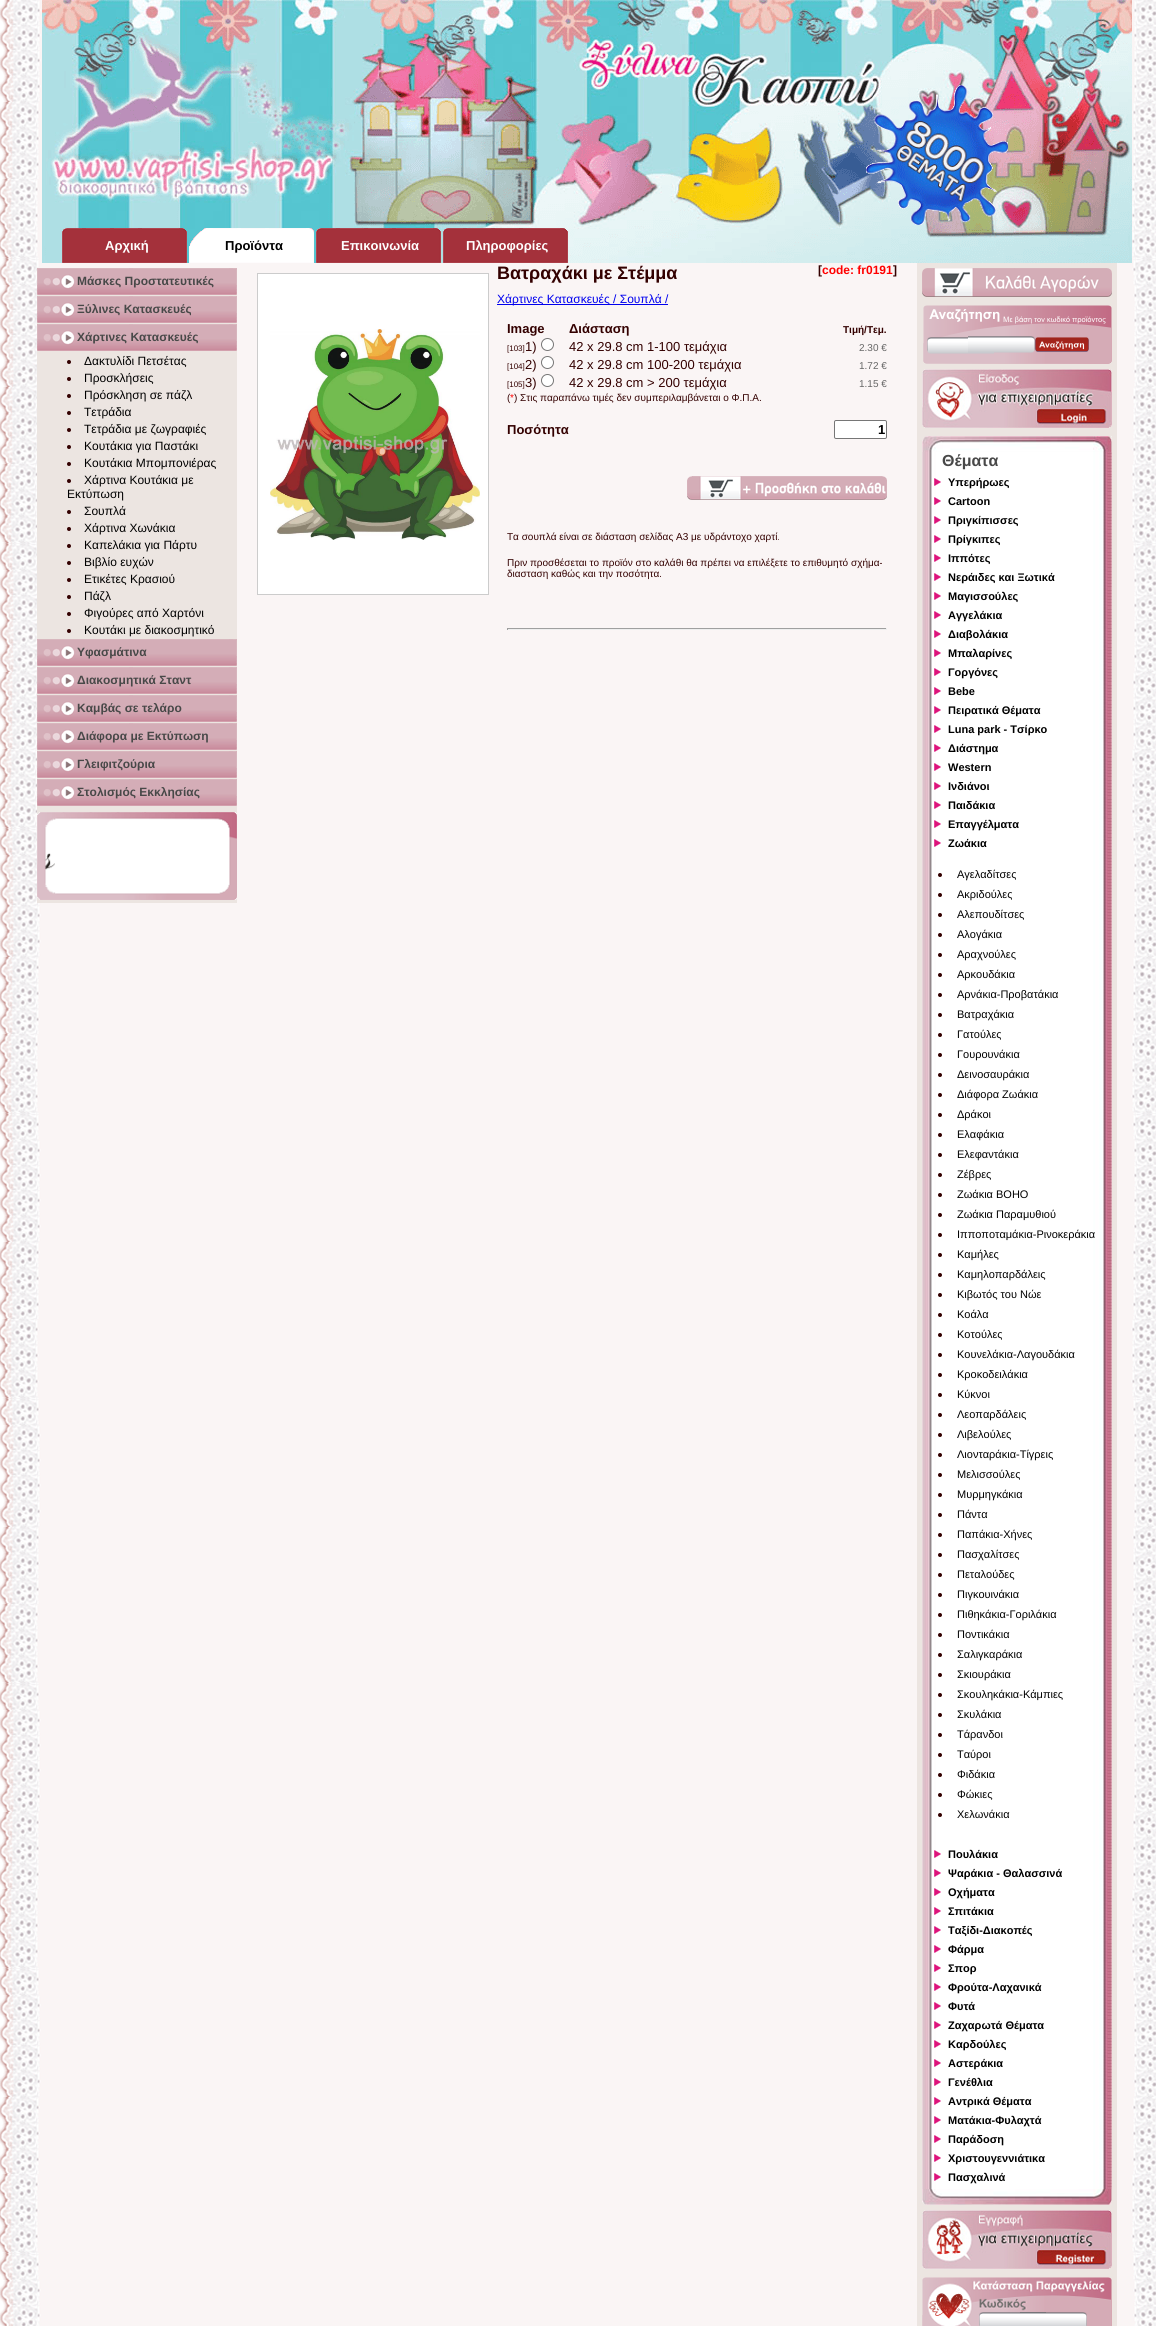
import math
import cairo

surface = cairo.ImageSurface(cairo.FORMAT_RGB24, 1156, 2326)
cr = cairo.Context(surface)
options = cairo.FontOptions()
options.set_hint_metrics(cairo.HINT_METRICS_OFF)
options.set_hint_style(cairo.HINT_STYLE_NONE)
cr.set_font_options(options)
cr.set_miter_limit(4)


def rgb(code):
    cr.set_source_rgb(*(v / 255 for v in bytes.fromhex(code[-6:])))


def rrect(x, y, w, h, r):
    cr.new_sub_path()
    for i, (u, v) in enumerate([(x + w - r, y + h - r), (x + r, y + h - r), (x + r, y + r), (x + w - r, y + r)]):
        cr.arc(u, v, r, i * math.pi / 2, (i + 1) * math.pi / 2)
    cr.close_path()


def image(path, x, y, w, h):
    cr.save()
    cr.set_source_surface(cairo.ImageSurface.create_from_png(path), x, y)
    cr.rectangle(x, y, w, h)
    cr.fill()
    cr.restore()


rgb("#ffffff")
cr.paint()
image("img/1.png", 0, 0, 1156, 2326)
image("img/2.png", 42, 0, 1090, 263)
image("img/3.png", 866, 85, 142, 140)
image("img/4.png", 62, 228, 125, 35)
image("img/5.png", 189, 228, 125, 35)
image("img/6.png", 316, 228, 125, 35)
image("img/7.png", 443, 228, 125, 35)
rgb("#ece5e1")
cr.rectangle(37, 268, 200, 635)
cr.fill()
image("img/8.png", 37, 268, 200, 27)
image("img/8.png", 37, 296, 200, 27)
image("img/8.png", 37, 324, 200, 27)
rgb("#330000")
cr.arc(69, 362, 2, 0, 2 * math.pi)
cr.fill()
cr.arc(69, 379, 2, 0, 2 * math.pi)
cr.fill()
cr.arc(69, 396, 2, 0, 2 * math.pi)
cr.fill()
cr.arc(69, 413, 2, 0, 2 * math.pi)
cr.fill()
cr.arc(69, 430, 2, 0, 2 * math.pi)
cr.fill()
cr.arc(69, 447, 2, 0, 2 * math.pi)
cr.fill()
cr.arc(69, 464, 2, 0, 2 * math.pi)
cr.fill()
cr.arc(69, 481, 2, 0, 2 * math.pi)
cr.fill()
cr.arc(69, 512, 2, 0, 2 * math.pi)
cr.fill()
cr.arc(69, 529, 2, 0, 2 * math.pi)
cr.fill()
cr.arc(69, 546, 2, 0, 2 * math.pi)
cr.fill()
cr.arc(69, 563, 2, 0, 2 * math.pi)
cr.fill()
cr.arc(69, 580, 2, 0, 2 * math.pi)
cr.fill()
cr.arc(69, 597, 2, 0, 2 * math.pi)
cr.fill()
cr.arc(69, 614, 2, 0, 2 * math.pi)
cr.fill()
cr.arc(69, 631, 2, 0, 2 * math.pi)
cr.fill()
image("img/8.png", 37, 639, 200, 27)
image("img/8.png", 37, 667, 200, 27)
image("img/8.png", 37, 695, 200, 27)
image("img/8.png", 37, 723, 200, 27)
image("img/8.png", 37, 751, 200, 27)
image("img/8.png", 37, 779, 200, 27)
image("img/9.png", 37, 812, 200, 88)
rgb("#ffffff")
cr.rectangle(257.5, 273.5, 231, 321)
cr.fill_preserve()
rgb("#cccccc")
cr.set_line_width(1)
cr.stroke()
image("img/10.png", 270, 329, 210, 211)
rgb("#0000ee")
cr.rectangle(497, 304, 171, 1)
cr.fill()
rgb("#ffffff")
cr.arc(547.5, 344.5, 6, 0, 2 * math.pi)
cr.fill_preserve()
rgb("#767676")
cr.stroke()
rgb("#ffffff")
cr.arc(547.5, 362.5, 6, 0, 2 * math.pi)
cr.fill_preserve()
rgb("#767676")
cr.stroke()
rgb("#ffffff")
cr.arc(547.5, 380.5, 6, 0, 2 * math.pi)
cr.fill_preserve()
rgb("#767676")
cr.stroke()
rgb("#ffffff")
rrect(834.5, 420.5, 52, 18, 1.5)
cr.fill_preserve()
rgb("#767676")
cr.stroke()
image("img/11.png", 687, 476, 200, 24)
for x, y, w, h, color in [
    (507, 628, 380, 1, "#9f9f9f"),
    (886, 628, 1, 2, "#eeeeee"),
    (507, 629, 380, 1, "#eeeeee"),
    (507, 628, 1, 2, "#9f9f9f"),
    (917, 263, 200, 2063, "#ece5e1"),
]:
    rgb(color)
    cr.rectangle(x, y, w, h)
    cr.fill()
image("img/12.png", 922, 268, 190, 29)
image("img/13.png", 923, 305, 189, 59)
image("img/14.png", 927, 337, 67, 17)
image("img/15.png", 968, 336, 67, 17)
image("img/16.png", 1035, 337, 54, 15)
image("img/17.png", 922, 369, 190, 59)
image("img/18.png", 922, 436, 190, 16)
image("img/19.png", 922, 2189, 190, 16)
image("img/20.png", 922, 452, 190, 23)
image("img/21.png", 922, 475, 190, 19)
image("img/22.png", 934, 478, 7, 8)
image("img/21.png", 922, 494, 190, 19)
image("img/22.png", 934, 497, 7, 8)
image("img/21.png", 922, 513, 190, 19)
image("img/22.png", 934, 516, 7, 8)
image("img/21.png", 922, 532, 190, 19)
image("img/22.png", 934, 535, 7, 8)
image("img/21.png", 922, 551, 190, 19)
image("img/22.png", 934, 554, 7, 8)
image("img/21.png", 922, 570, 190, 19)
image("img/22.png", 934, 573, 7, 8)
image("img/21.png", 922, 589, 190, 19)
image("img/22.png", 934, 592, 7, 8)
image("img/21.png", 922, 608, 190, 19)
image("img/22.png", 934, 611, 7, 8)
image("img/21.png", 922, 627, 190, 19)
image("img/22.png", 934, 630, 7, 8)
image("img/21.png", 922, 646, 190, 19)
image("img/22.png", 934, 649, 7, 8)
image("img/21.png", 922, 665, 190, 19)
image("img/22.png", 934, 668, 7, 8)
image("img/21.png", 922, 684, 190, 19)
image("img/22.png", 934, 687, 7, 8)
image("img/21.png", 922, 703, 190, 19)
image("img/22.png", 934, 706, 7, 8)
image("img/21.png", 922, 722, 190, 19)
image("img/22.png", 934, 725, 7, 8)
image("img/21.png", 922, 741, 190, 19)
image("img/22.png", 934, 744, 7, 8)
image("img/21.png", 922, 760, 190, 19)
image("img/22.png", 934, 763, 7, 8)
image("img/21.png", 922, 779, 190, 19)
image("img/22.png", 934, 782, 7, 8)
image("img/21.png", 922, 798, 190, 19)
image("img/22.png", 934, 801, 7, 8)
image("img/21.png", 922, 817, 190, 19)
image("img/22.png", 934, 820, 7, 8)
image("img/23.png", 922, 836, 190, 1011)
image("img/22.png", 934, 839, 7, 8)
rgb("#330000")
cr.arc(940, 875, 2, 0, 2 * math.pi)
cr.fill()
cr.arc(940, 895, 2, 0, 2 * math.pi)
cr.fill()
cr.arc(940, 915, 2, 0, 2 * math.pi)
cr.fill()
cr.arc(940, 935, 2, 0, 2 * math.pi)
cr.fill()
cr.arc(940, 955, 2, 0, 2 * math.pi)
cr.fill()
cr.arc(940, 975, 2, 0, 2 * math.pi)
cr.fill()
cr.arc(940, 995, 2, 0, 2 * math.pi)
cr.fill()
cr.arc(940, 1015, 2, 0, 2 * math.pi)
cr.fill()
cr.arc(940, 1035, 2, 0, 2 * math.pi)
cr.fill()
cr.arc(940, 1055, 2, 0, 2 * math.pi)
cr.fill()
cr.arc(940, 1075, 2, 0, 2 * math.pi)
cr.fill()
cr.arc(940, 1095, 2, 0, 2 * math.pi)
cr.fill()
cr.arc(940, 1115, 2, 0, 2 * math.pi)
cr.fill()
cr.arc(940, 1135, 2, 0, 2 * math.pi)
cr.fill()
cr.arc(940, 1155, 2, 0, 2 * math.pi)
cr.fill()
cr.arc(940, 1175, 2, 0, 2 * math.pi)
cr.fill()
cr.arc(940, 1195, 2, 0, 2 * math.pi)
cr.fill()
cr.arc(940, 1215, 2, 0, 2 * math.pi)
cr.fill()
cr.arc(940, 1235, 2, 0, 2 * math.pi)
cr.fill()
cr.arc(940, 1255, 2, 0, 2 * math.pi)
cr.fill()
cr.arc(940, 1275, 2, 0, 2 * math.pi)
cr.fill()
cr.arc(940, 1295, 2, 0, 2 * math.pi)
cr.fill()
cr.arc(940, 1315, 2, 0, 2 * math.pi)
cr.fill()
cr.arc(940, 1335, 2, 0, 2 * math.pi)
cr.fill()
cr.arc(940, 1355, 2, 0, 2 * math.pi)
cr.fill()
cr.arc(940, 1375, 2, 0, 2 * math.pi)
cr.fill()
cr.arc(940, 1395, 2, 0, 2 * math.pi)
cr.fill()
cr.arc(940, 1415, 2, 0, 2 * math.pi)
cr.fill()
cr.arc(940, 1435, 2, 0, 2 * math.pi)
cr.fill()
cr.arc(940, 1455, 2, 0, 2 * math.pi)
cr.fill()
cr.arc(940, 1475, 2, 0, 2 * math.pi)
cr.fill()
cr.arc(940, 1495, 2, 0, 2 * math.pi)
cr.fill()
cr.arc(940, 1515, 2, 0, 2 * math.pi)
cr.fill()
cr.arc(940, 1535, 2, 0, 2 * math.pi)
cr.fill()
cr.arc(940, 1555, 2, 0, 2 * math.pi)
cr.fill()
cr.arc(940, 1575, 2, 0, 2 * math.pi)
cr.fill()
cr.arc(940, 1595, 2, 0, 2 * math.pi)
cr.fill()
cr.arc(940, 1615, 2, 0, 2 * math.pi)
cr.fill()
cr.arc(940, 1635, 2, 0, 2 * math.pi)
cr.fill()
cr.arc(940, 1655, 2, 0, 2 * math.pi)
cr.fill()
cr.arc(940, 1675, 2, 0, 2 * math.pi)
cr.fill()
cr.arc(940, 1695, 2, 0, 2 * math.pi)
cr.fill()
cr.arc(940, 1715, 2, 0, 2 * math.pi)
cr.fill()
cr.arc(940, 1735, 2, 0, 2 * math.pi)
cr.fill()
cr.arc(940, 1755, 2, 0, 2 * math.pi)
cr.fill()
cr.arc(940, 1775, 2, 0, 2 * math.pi)
cr.fill()
cr.arc(940, 1795, 2, 0, 2 * math.pi)
cr.fill()
cr.arc(940, 1815, 2, 0, 2 * math.pi)
cr.fill()
image("img/21.png", 922, 1847, 190, 19)
image("img/22.png", 934, 1850, 7, 8)
image("img/21.png", 922, 1866, 190, 19)
image("img/22.png", 934, 1869, 7, 8)
image("img/21.png", 922, 1885, 190, 19)
image("img/22.png", 934, 1888, 7, 8)
image("img/21.png", 922, 1904, 190, 19)
image("img/22.png", 934, 1907, 7, 8)
image("img/21.png", 922, 1923, 190, 19)
image("img/22.png", 934, 1926, 7, 8)
image("img/21.png", 922, 1942, 190, 19)
image("img/22.png", 934, 1945, 7, 8)
image("img/21.png", 922, 1961, 190, 19)
image("img/22.png", 934, 1964, 7, 8)
image("img/21.png", 922, 1980, 190, 19)
image("img/22.png", 934, 1983, 7, 8)
image("img/21.png", 922, 1999, 190, 19)
image("img/22.png", 934, 2002, 7, 8)
image("img/21.png", 922, 2018, 190, 19)
image("img/22.png", 934, 2021, 7, 8)
image("img/21.png", 922, 2037, 190, 19)
image("img/22.png", 934, 2040, 7, 8)
image("img/21.png", 922, 2056, 190, 19)
image("img/22.png", 934, 2059, 7, 8)
image("img/21.png", 922, 2075, 190, 19)
image("img/22.png", 934, 2078, 7, 8)
image("img/21.png", 922, 2094, 190, 19)
image("img/22.png", 934, 2097, 7, 8)
image("img/21.png", 922, 2113, 190, 19)
image("img/22.png", 934, 2116, 7, 8)
image("img/21.png", 922, 2132, 190, 19)
image("img/22.png", 934, 2135, 7, 8)
image("img/21.png", 922, 2151, 190, 19)
image("img/22.png", 934, 2154, 7, 8)
image("img/21.png", 922, 2170, 190, 19)
image("img/22.png", 934, 2173, 7, 8)
image("img/24.png", 922, 2210, 190, 59)
image("img/25.png", 922, 2277, 190, 49)
image("img/26.png", 979, 2312, 67, 14)
image("img/27.png", 1020, 2312, 67, 14)
cr.select_font_face("Liberation Sans", cairo.FONT_SLANT_NORMAL, cairo.FONT_WEIGHT_BOLD)
cr.set_font_size(13)
rgb("#ffffff")
cr.move_to(105, 250)
cr.show_text("Αρχική")
rgb("#000000")
cr.move_to(225, 250)
cr.show_text("Προϊόντα")
rgb("#ffffff")
cr.move_to(341, 250)
cr.show_text("Επικοινωνία")
cr.move_to(466, 250)
cr.show_text("Πληροφορίες")
cr.set_font_size(12)
rgb("#484848")
for x, y, s in [
    (77, 285, "Μάσκες Προστατευτικές"),
    (77, 313, "Ξύλινες Κατασκευές"),
    (77, 341, "Χάρτινες Κατασκευές"),
]:
    cr.move_to(x, y)
    cr.show_text(s)
cr.select_font_face("Liberation Sans")
rgb("#000000")
for x, y, s in [
    (84, 365, "Δακτυλίδι Πετσέτας"),
    (84, 382, "Προσκλήσεις"),
    (84, 399, "Πρόσκληση σε πάζλ"),
    (84, 416, "Τετράδια"),
    (84, 433, "Τετράδια με ζωγραφιές"),
    (84, 450, "Κουτάκια για Παστάκι"),
    (84, 467, "Κουτάκια Μπομπονιέρας"),
    (84, 484, "Χάρτινα Κουτάκια με"),
    (67, 498, "Εκτύπωση"),
    (84, 515, "Σουπλά"),
    (84, 532, "Χάρτινα Χωνάκια"),
    (84, 549, "Καπελάκια για Πάρτυ"),
    (84, 566, "Βιβλίο ευχών"),
    (84, 583, "Ετικέτες Κρασιού"),
    (84, 600, "Πάζλ"),
    (84, 617, "Φιγούρες από Χαρτόνι"),
    (84, 634, "Κουτάκι με διακοσμητικό"),
]:
    cr.move_to(x, y)
    cr.show_text(s)
cr.select_font_face("Liberation Sans", cairo.FONT_SLANT_NORMAL, cairo.FONT_WEIGHT_BOLD)
rgb("#484848")
for x, y, s in [
    (77, 656, "Υφασμάτινα"),
    (77, 684, "Διακοσμητικά Σταντ"),
    (77, 712, "Καμβάς σε τελάρο"),
    (77, 740, "Διάφορα με Εκτύπωση"),
    (77, 768, "Γλειφιτζούρια"),
    (77, 796, "Στολισμός Εκκλησίας"),
]:
    cr.move_to(x, y)
    cr.show_text(s)
cr.set_font_size(18)
rgb("#330000")
cr.move_to(497, 279)
cr.show_text("Βατραχάκι με Στέμμα")
cr.set_font_size(12)
cr.move_to(818, 274)
cr.show_text("[")
rgb("#ff0000")
cr.move_to(822, 274)
cr.show_text("code: fr0191")
rgb("#330000")
cr.move_to(893, 274)
cr.show_text("]")
cr.select_font_face("Liberation Sans")
rgb("#0000ee")
cr.move_to(497, 303)
cr.show_text("Χάρτινες Κατασκευές / Σουπλά /")
cr.select_font_face("Liberation Sans", cairo.FONT_SLANT_NORMAL, cairo.FONT_WEIGHT_BOLD)
cr.set_font_size(13)
rgb("#330000")
cr.move_to(507, 333)
cr.show_text("Image")
cr.move_to(569, 333)
cr.show_text("Διάσταση")
cr.set_font_size(10)
cr.move_to(843, 333)
cr.show_text("Τιμή/Τεμ.")
cr.select_font_face("Liberation Sans")
cr.set_font_size(8)
cr.move_to(507, 351)
cr.show_text("[103]")
cr.set_font_size(13)
cr.move_to(525, 351)
cr.show_text("1)")
cr.move_to(569, 351)
cr.show_text("42 x 29.8 cm 1-100 τεμάχια")
cr.set_font_size(10)
rgb("#666666")
cr.move_to(859, 351)
cr.show_text("2.30 €")
cr.set_font_size(8)
rgb("#330000")
cr.move_to(507, 369)
cr.show_text("[104]")
cr.set_font_size(13)
cr.move_to(525, 369)
cr.show_text("2)")
cr.move_to(569, 369)
cr.show_text("42 x 29.8 cm 100-200 τεμάχια")
cr.set_font_size(10)
rgb("#666666")
cr.move_to(859, 369)
cr.show_text("1.72 €")
cr.set_font_size(8)
rgb("#330000")
cr.move_to(507, 387)
cr.show_text("[105]")
cr.set_font_size(13)
cr.move_to(525, 387)
cr.show_text("3)")
cr.move_to(569, 387)
cr.show_text("42 x 29.8 cm > 200 τεμάχια")
cr.set_font_size(10)
rgb("#666666")
cr.move_to(859, 387)
cr.show_text("1.15 €")
rgb("#330000")
cr.move_to(507, 401)
cr.show_text("(")
rgb("#ff0000")
cr.move_to(510, 401)
cr.show_text("*")
rgb("#330000")
cr.move_to(514, 401)
cr.show_text(") Στις παραπάνω τιμές δεν συμπεριλαμβάνεται ο Φ.Π.Α.")
cr.select_font_face("Liberation Sans", cairo.FONT_SLANT_NORMAL, cairo.FONT_WEIGHT_BOLD)
cr.set_font_size(13)
cr.move_to(507, 434)
cr.show_text("Ποσότητα")
rgb("#000000")
cr.move_to(878, 434)
cr.show_text("1")
cr.select_font_face("Liberation Sans")
cr.set_font_size(10)
rgb("#330000")
for x, y, s in [
    (507, 540, "Τα σουπλά είναι σε διάσταση σελίδας Α3 με υδράντοχο χαρτί."),
    (507, 566, "Πριν προσθέσεται το προϊόν στο καλάθι θα πρέπει να επιλέξετε το επιθυμητό σχήμα-"),
    (507, 577, "διασταση καθώς και την ποσότητα."),
]:
    cr.move_to(x, y)
    cr.show_text(s)
cr.select_font_face("Liberation Sans", cairo.FONT_SLANT_NORMAL, cairo.FONT_WEIGHT_BOLD)
cr.set_font_size(16)
rgb("#484848")
cr.move_to(942, 466)
cr.show_text("Θέματα")
cr.set_font_size(11)
rgb("#000000")
for x, y, s in [
    (948, 486, "Υπερήρωες"),
    (948, 505, "Cartoon"),
    (948, 524, "Πριγκίπισσες"),
    (948, 543, "Πρίγκιπες"),
    (948, 562, "Ιππότες"),
    (948, 581, "Νεράιδες και Ξωτικά"),
    (948, 600, "Μαγισσούλες"),
    (948, 619, "Αγγελάκια"),
    (948, 638, "Διαβολάκια"),
    (948, 657, "Μπαλαρίνες"),
    (948, 676, "Γοργόνες"),
    (948, 695, "Bebe"),
    (948, 714, "Πειρατικά Θέματα"),
    (948, 733, "Luna park - Τσίρκο"),
    (948, 752, "Διάστημα"),
    (948, 771, "Western"),
    (948, 790, "Ινδιάνοι"),
    (948, 809, "Παιδάκια"),
    (948, 828, "Επαγγέλματα"),
    (948, 847, "Ζωάκια"),
]:
    cr.move_to(x, y)
    cr.show_text(s)
cr.select_font_face("Liberation Sans")
for x, y, s in [
    (957, 878, "Αγελαδίτσες"),
    (957, 898, "Ακριδούλες"),
    (957, 918, "Αλεπουδίτσες"),
    (957, 938, "Αλογάκια"),
    (957, 958, "Αραχνούλες"),
    (957, 978, "Αρκουδάκια"),
    (957, 998, "Αρνάκια-Προβατάκια"),
    (957, 1018, "Βατραχάκια"),
    (957, 1038, "Γατούλες"),
    (957, 1058, "Γουρουνάκια"),
    (957, 1078, "Δεινοσαυράκια"),
    (957, 1098, "Διάφορα Ζωάκια"),
    (957, 1118, "Δράκοι"),
    (957, 1138, "Ελαφάκια"),
    (957, 1158, "Ελεφαντάκια"),
    (957, 1178, "Ζέβρες"),
    (957, 1198, "Ζωάκια BOHO"),
    (957, 1218, "Ζωάκια Παραμυθιού"),
    (957, 1238, "Ιπποποταμάκια-Ρινοκεράκια"),
    (957, 1258, "Καμήλες"),
    (957, 1278, "Καμηλοπαρδάλεις"),
    (957, 1298, "Κιβωτός του Νώε"),
    (957, 1318, "Κοάλα"),
    (957, 1338, "Κοτούλες"),
    (957, 1358, "Κουνελάκια-Λαγουδάκια"),
    (957, 1378, "Κροκοδειλάκια"),
    (957, 1398, "Κύκνοι"),
    (957, 1418, "Λεοπαρδάλεις"),
    (957, 1438, "Λιβελούλες"),
    (957, 1458, "Λιονταράκια-Τίγρεις"),
    (957, 1478, "Μελισσούλες"),
    (957, 1498, "Μυρμηγκάκια"),
    (957, 1518, "Πάντα"),
    (957, 1538, "Παπάκια-Χήνες"),
    (957, 1558, "Πασχαλίτσες"),
    (957, 1578, "Πεταλούδες"),
    (957, 1598, "Πιγκουινάκια"),
    (957, 1618, "Πιθηκάκια-Γοριλάκια"),
    (957, 1638, "Ποντικάκια"),
    (957, 1658, "Σαλιγκαράκια"),
    (957, 1678, "Σκιουράκια"),
    (957, 1698, "Σκουληκάκια-Κάμπιες"),
    (957, 1718, "Σκυλάκια"),
    (957, 1738, "Τάρανδοι"),
    (957, 1758, "Ταύροι"),
    (957, 1778, "Φιδάκια"),
    (957, 1798, "Φώκιες"),
    (957, 1818, "Χελωνάκια"),
]:
    cr.move_to(x, y)
    cr.show_text(s)
cr.select_font_face("Liberation Sans", cairo.FONT_SLANT_NORMAL, cairo.FONT_WEIGHT_BOLD)
for x, y, s in [
    (948, 1858, "Πουλάκια"),
    (948, 1877, "Ψαράκια - Θαλασσινά"),
    (948, 1896, "Οχήματα"),
    (948, 1915, "Σπιτάκια"),
    (948, 1934, "Ταξίδι-Διακοπές"),
    (948, 1953, "Φάρμα"),
    (948, 1972, "Σπορ"),
    (948, 1991, "Φρούτα-Λαχανικά"),
    (948, 2010, "Φυτά"),
    (948, 2029, "Ζαχαρωτά Θέματα"),
    (948, 2048, "Καρδούλες"),
    (948, 2067, "Αστεράκια"),
    (948, 2086, "Γενέθλια"),
    (948, 2105, "Αντρικά Θέματα"),
    (948, 2124, "Ματάκια-Φυλαχτά"),
    (948, 2143, "Παράδοση"),
    (948, 2162, "Χριστουγεννιάτικα"),
    (948, 2181, "Πασχαλινά"),
]:
    cr.move_to(x, y)
    cr.show_text(s)
surface.write_to_png("page.png")
